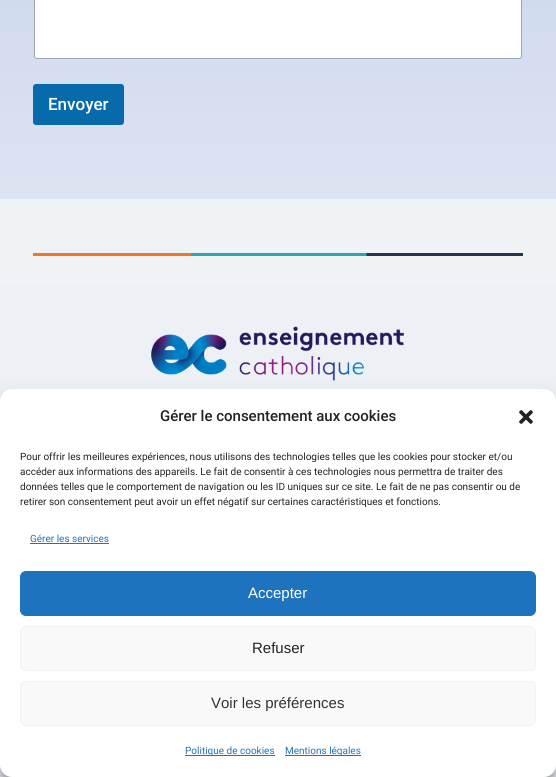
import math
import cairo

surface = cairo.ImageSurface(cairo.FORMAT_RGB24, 556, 777)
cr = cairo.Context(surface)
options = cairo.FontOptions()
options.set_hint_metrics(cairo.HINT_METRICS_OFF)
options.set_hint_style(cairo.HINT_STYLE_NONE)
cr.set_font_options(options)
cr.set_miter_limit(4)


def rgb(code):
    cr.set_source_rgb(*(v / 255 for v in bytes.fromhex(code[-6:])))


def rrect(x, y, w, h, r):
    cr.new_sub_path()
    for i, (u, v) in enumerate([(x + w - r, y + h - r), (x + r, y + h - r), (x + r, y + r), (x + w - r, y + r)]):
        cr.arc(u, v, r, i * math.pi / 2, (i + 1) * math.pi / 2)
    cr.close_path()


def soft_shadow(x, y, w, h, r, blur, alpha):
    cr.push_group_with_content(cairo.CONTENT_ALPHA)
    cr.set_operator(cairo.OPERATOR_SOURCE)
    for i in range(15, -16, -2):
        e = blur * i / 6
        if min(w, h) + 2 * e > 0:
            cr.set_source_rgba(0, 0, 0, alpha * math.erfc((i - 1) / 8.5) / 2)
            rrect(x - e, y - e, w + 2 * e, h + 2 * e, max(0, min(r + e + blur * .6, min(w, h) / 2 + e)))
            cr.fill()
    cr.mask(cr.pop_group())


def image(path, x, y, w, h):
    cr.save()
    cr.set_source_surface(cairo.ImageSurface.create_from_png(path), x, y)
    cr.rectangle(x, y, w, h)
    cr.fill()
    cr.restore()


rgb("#ffffff")
cr.paint()
gradient = cairo.LinearGradient(278, -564, 278, 777)
gradient.add_color_stop_rgba(0, 0.686, 0.757, 0.886, 1)
gradient.add_color_stop_rgba(1, 1, 1, 1, 1)
cr.set_source(gradient)
cr.rectangle(0, 0, 556, 199)
cr.fill()
rgb("#ffffff")
rrect(35, -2, 486, 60, 2)
cr.fill()
rrect(34.5, -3.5, 487, 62, 2.5)
cr.set_source_rgba(0, 0, 0, 0.25)
cr.set_line_width(1)
cr.stroke()
rgb("#066aab")
rrect(33, 84, 91, 41, 3)
cr.fill()
rgb("#eff3f6")
cr.rectangle(0, 199, 556, 87)
cr.fill()
image("img/1.png", 33, 253, 490, 3)
rgb("#edf1f6")
cr.rectangle(0, 286, 556, 115)
cr.fill()
image("img/2.png", 151, 326, 253, 55)
cr.rectangle(0, 765, 556, 12)
cr.fill()
rgb("#000000")
soft_shadow(0, 395, 556, 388, 12, 3, 0.23)
soft_shadow(0, 399, 556, 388, 12, 10, 0.19)
rgb("#ffffff")
rrect(0, 389, 556, 388, 12)
cr.fill()
image("img/3.png", 519, 410, 14, 14)
rgb("#1e73be")
cr.rectangle(30, 543, 79, 1)
cr.fill()
rrect(20.5, 571.5, 515, 44, 5.5)
cr.fill_preserve()
cr.stroke()
rgb("#f9f9f9")
rrect(20.5, 626.5, 515, 44, 5.5)
cr.fill_preserve()
rgb("#f2f2f2")
cr.stroke()
rgb("#f9f9f9")
rrect(20.5, 681.5, 515, 44, 5.5)
cr.fill_preserve()
rgb("#f2f2f2")
cr.stroke()
rgb("#1e73be")
cr.rectangle(185, 755, 90, 1)
cr.fill()
cr.rectangle(285, 755, 76, 1)
cr.fill()
cr.select_font_face("Roboto Medium")
cr.set_font_size(17)
rgb("#ffffff")
cr.move_to(48, 110)
cr.show_text("Envoyer")
cr.set_font_size(15)
rgb("#222222")
cr.move_to(160, 421)
cr.show_text("Gérer le consentement aux cookies")
cr.select_font_face("Roboto")
cr.set_font_size(10)
for x, y, s in [
    (20, 460, "Pour offrir les meilleures expériences, nous utilisons des technologies telles que les cookies pour stocker et/ou"),
    (20, 475, "accéder aux informations des appareils. Le fait de consentir à ces technologies nous permettra de traiter des"),
    (20, 490, "données telles que le comportement de navigation ou les ID uniques sur ce site. Le fait de ne pas consentir ou de"),
    (20, 505, "retirer son consentement peut avoir un effet négatif sur certaines caractéristiques et fonctions."),
]:
    cr.move_to(x, y)
    cr.show_text(s)
rgb("#1e73be")
cr.move_to(30, 542)
cr.show_text("Gérer les services")
cr.select_font_face("Liberation Sans")
cr.set_font_size(15)
rgb("#ffffff")
cr.move_to(248, 598)
cr.show_text("Accepter")
rgb("#222222")
cr.move_to(252, 653)
cr.show_text("Refuser")
rgb("#333333")
cr.move_to(211, 708)
cr.show_text("Voir les préférences")
cr.select_font_face("Roboto")
cr.set_font_size(10)
rgb("#1e73be")
cr.move_to(185, 754)
cr.show_text("Politique de cookies")
cr.move_to(285, 754)
cr.show_text("Mentions légales")
surface.write_to_png("page.png")
